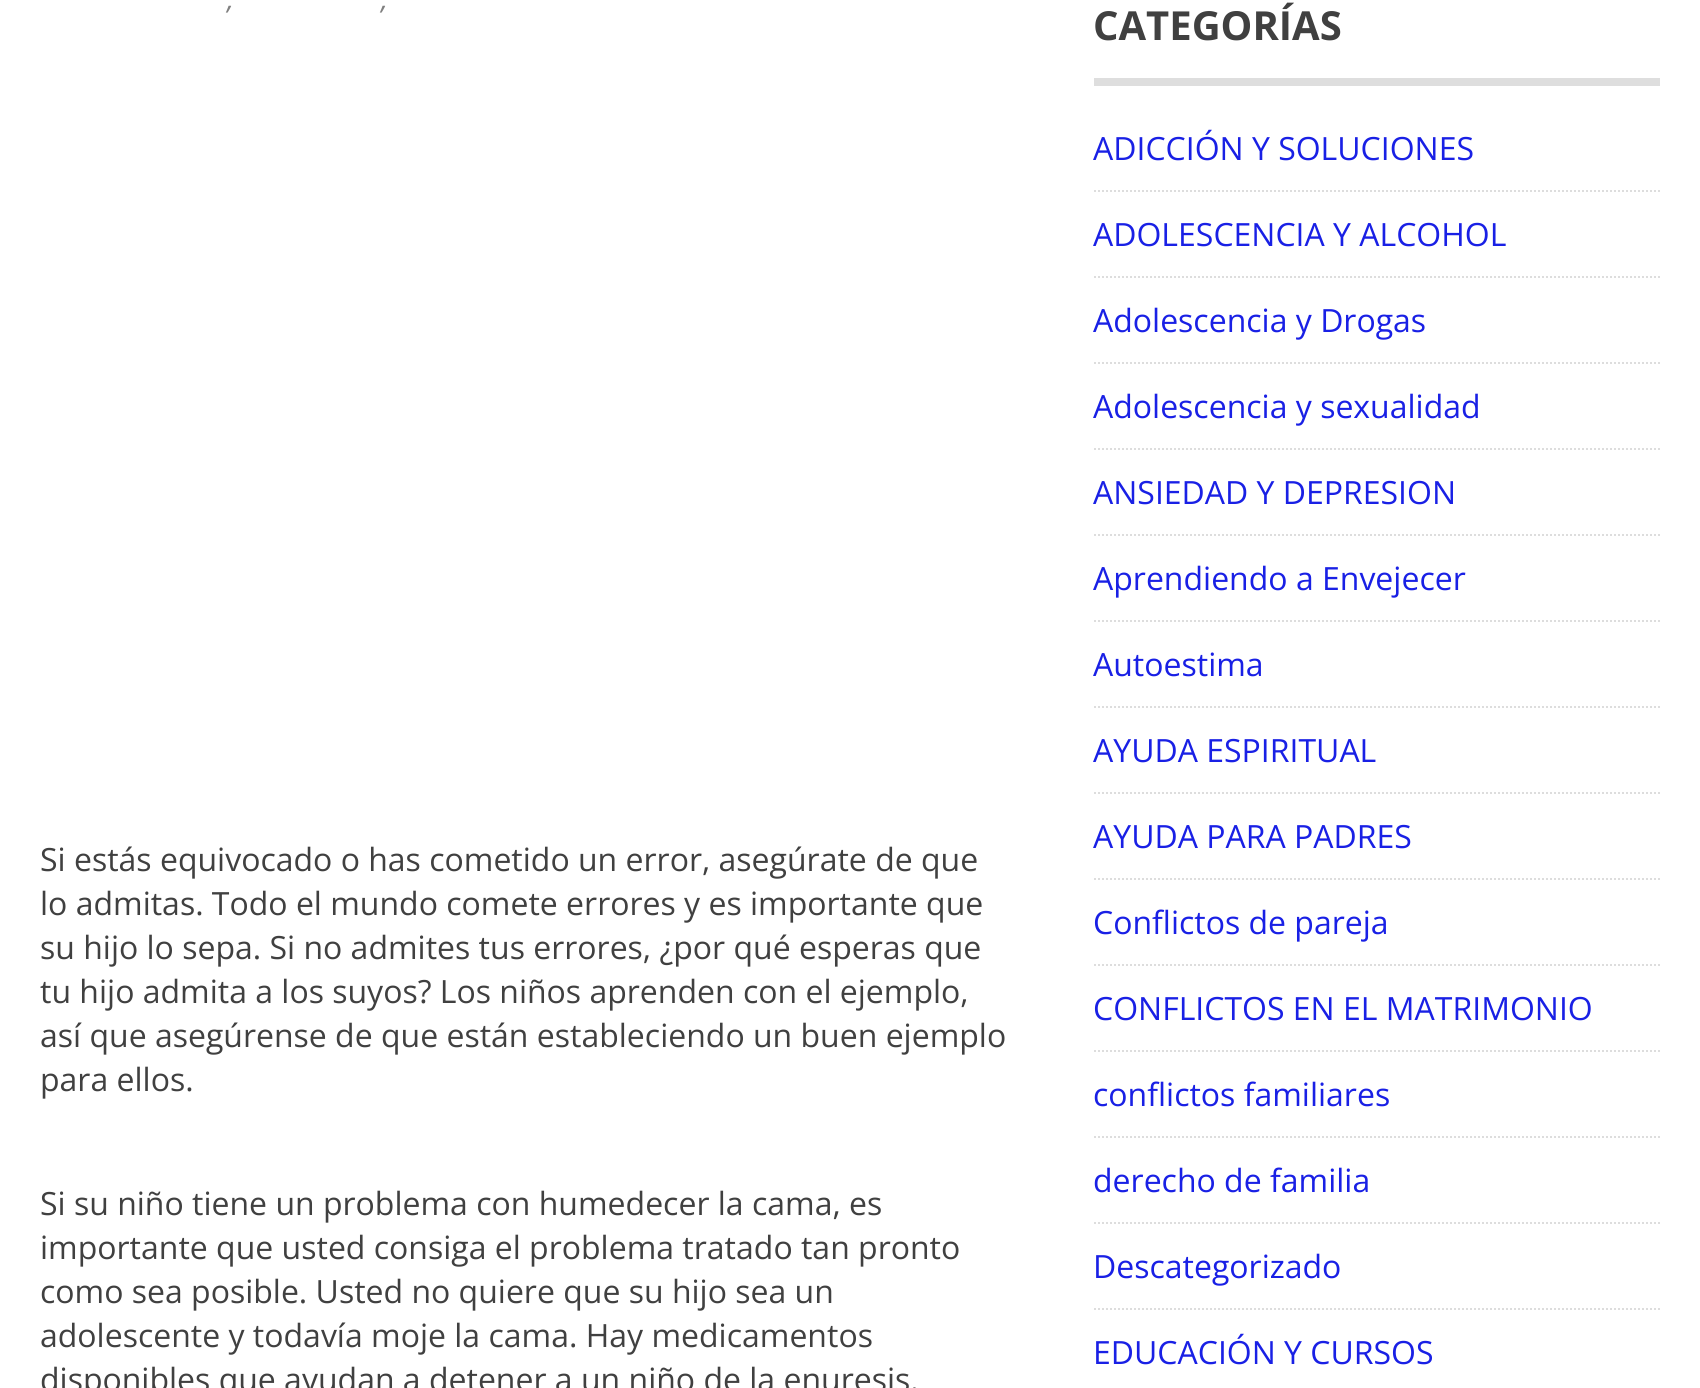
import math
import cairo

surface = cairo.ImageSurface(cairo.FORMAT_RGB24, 1700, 1388)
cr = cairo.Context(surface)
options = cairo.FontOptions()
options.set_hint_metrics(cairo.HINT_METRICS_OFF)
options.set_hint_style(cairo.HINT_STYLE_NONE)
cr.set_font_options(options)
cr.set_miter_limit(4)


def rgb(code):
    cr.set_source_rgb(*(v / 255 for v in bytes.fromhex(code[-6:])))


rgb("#ffffff")
cr.paint()
rgb("#dedede")
cr.rectangle(1094, 78, 566, 8)
cr.fill()
cr.new_path()
cr.move_to(1094, 191)
cr.line_to(1660, 191)
rgb("#dddddd")
cr.set_dash([2, 2])
cr.stroke()
cr.new_path()
cr.move_to(1094, 277)
cr.line_to(1660, 277)
cr.stroke()
cr.new_path()
cr.move_to(1094, 363)
cr.line_to(1660, 363)
cr.stroke()
cr.new_path()
cr.move_to(1094, 449)
cr.line_to(1660, 449)
cr.stroke()
cr.new_path()
cr.move_to(1094, 535)
cr.line_to(1660, 535)
cr.stroke()
cr.new_path()
cr.move_to(1094, 621)
cr.line_to(1660, 621)
cr.stroke()
cr.new_path()
cr.move_to(1094, 707)
cr.line_to(1660, 707)
cr.stroke()
cr.new_path()
cr.move_to(1094, 793)
cr.line_to(1660, 793)
cr.stroke()
cr.new_path()
cr.move_to(1094, 879)
cr.line_to(1660, 879)
cr.stroke()
cr.new_path()
cr.move_to(1094, 965)
cr.line_to(1660, 965)
cr.stroke()
cr.new_path()
cr.move_to(1094, 1051)
cr.line_to(1660, 1051)
cr.stroke()
cr.new_path()
cr.move_to(1094, 1137)
cr.line_to(1660, 1137)
cr.stroke()
cr.new_path()
cr.move_to(1094, 1223)
cr.line_to(1660, 1223)
cr.stroke()
cr.new_path()
cr.move_to(1094, 1309)
cr.line_to(1660, 1309)
cr.stroke()
cr.select_font_face("Open Sans", cairo.FONT_SLANT_ITALIC)
cr.set_font_size(28)
rgb("#808080")
cr.move_to(227, 9)
cr.show_text(",")
cr.move_to(381, 9)
cr.show_text(",")
cr.select_font_face("Open Sans")
cr.set_font_size(32)
rgb("#404040")
for x, y, s in [
    (40, 871, "Si estás equivocado o has cometido un error, asegúrate de que"),
    (40, 915, "lo admitas. Todo el mundo comete errores y es importante que"),
    (40, 959, "su hijo lo sepa. Si no admites tus errores, ¿por qué esperas que"),
    (40, 1003, "tu hijo admita a los suyos? Los niños aprenden con el ejemplo,"),
    (40, 1047, "así que asegúrense de que están estableciendo un buen ejemplo"),
    (40, 1091, "para ellos."),
    (40, 1215, "Si su niño tiene un problema con humedecer la cama, es"),
    (40, 1259, "importante que usted consiga el problema tratado tan pronto"),
    (40, 1303, "como sea posible. Usted no quiere que su hijo sea un"),
    (40, 1347, "adolescente y todavía moje la cama. Hay medicamentos"),
    (40, 1391, "disponibles que ayudan a detener a un niño de la enuresis."),
]:
    cr.move_to(x, y)
    cr.show_text(s)
cr.select_font_face("Open Sans", cairo.FONT_SLANT_NORMAL, cairo.FONT_WEIGHT_BOLD)
cr.set_font_size(40)
cr.move_to(1093, 40)
cr.show_text("CATEGORÍAS")
cr.select_font_face("Open Sans")
cr.set_font_size(32)
rgb("#1920e5")
for x, y, s in [
    (1093, 160, "ADICCIÓN Y SOLUCIONES"),
    (1093, 246, "ADOLESCENCIA Y ALCOHOL"),
    (1093, 332, "Adolescencia y Drogas"),
    (1093, 418, "Adolescencia y sexualidad"),
    (1093, 504, "ANSIEDAD Y DEPRESION"),
    (1093, 590, "Aprendiendo a Envejecer"),
    (1093, 676, "Autoestima"),
    (1093, 762, "AYUDA ESPIRITUAL"),
    (1093, 848, "AYUDA PARA PADRES"),
    (1093, 934, "Conflictos de pareja"),
    (1093, 1020, "CONFLICTOS EN EL MATRIMONIO"),
    (1093, 1106, "conflictos familiares"),
    (1093, 1192, "derecho de familia"),
    (1093, 1278, "Descategorizado"),
    (1093, 1364, "EDUCACIÓN Y CURSOS"),
]:
    cr.move_to(x, y)
    cr.show_text(s)
surface.write_to_png("page.png")
